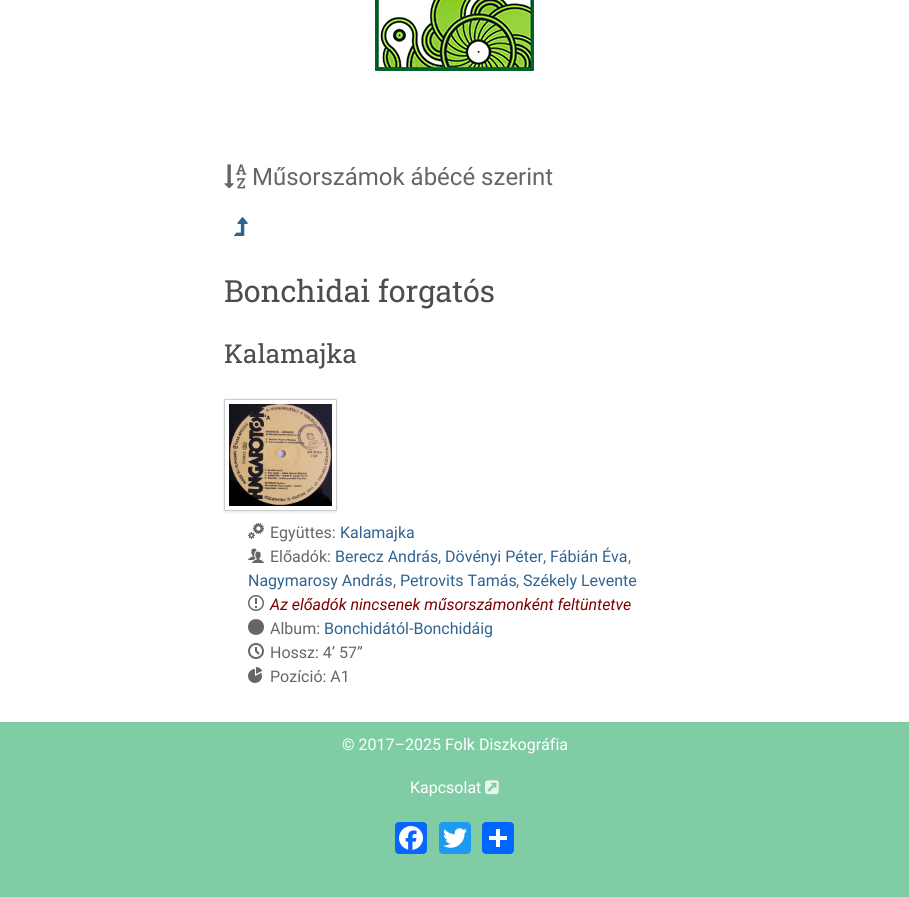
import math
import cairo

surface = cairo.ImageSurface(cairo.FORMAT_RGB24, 909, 897)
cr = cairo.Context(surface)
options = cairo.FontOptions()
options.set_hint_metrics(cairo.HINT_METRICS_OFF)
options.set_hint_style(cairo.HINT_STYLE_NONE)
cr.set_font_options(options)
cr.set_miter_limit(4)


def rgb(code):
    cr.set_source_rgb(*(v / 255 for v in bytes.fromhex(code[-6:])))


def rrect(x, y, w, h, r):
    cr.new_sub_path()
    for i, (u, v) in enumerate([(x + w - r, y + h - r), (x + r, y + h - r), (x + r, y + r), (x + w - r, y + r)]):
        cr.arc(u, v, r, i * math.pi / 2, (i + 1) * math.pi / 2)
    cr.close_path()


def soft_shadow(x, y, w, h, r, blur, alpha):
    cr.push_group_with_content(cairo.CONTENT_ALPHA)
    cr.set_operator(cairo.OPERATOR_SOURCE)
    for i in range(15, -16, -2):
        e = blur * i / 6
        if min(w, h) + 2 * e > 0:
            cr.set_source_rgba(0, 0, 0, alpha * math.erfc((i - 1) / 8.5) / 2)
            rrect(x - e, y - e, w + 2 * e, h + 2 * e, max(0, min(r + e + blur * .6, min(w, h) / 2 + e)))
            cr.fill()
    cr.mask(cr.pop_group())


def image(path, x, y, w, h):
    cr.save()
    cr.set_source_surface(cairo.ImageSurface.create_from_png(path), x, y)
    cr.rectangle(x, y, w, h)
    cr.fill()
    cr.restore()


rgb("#ffffff")
cr.paint()
image("img/1.png", 375, 0, 159, 71)
image("img/2.png", 224, 164, 23, 25)
image("img/3.png", 234, 217, 14, 19)
rgb("#000000")
soft_shadow(224, 400, 113, 112, 1, 1.5, 0.1)
rgb("#ffffff")
rrect(224.5, 399.5, 112, 111, 0.5)
cr.fill_preserve()
rgb("#cccccc")
cr.set_line_width(1)
cr.stroke()
image("img/4.png", 229, 404, 103, 102)
image("img/5.png", 248, 523, 16, 16)
image("img/6.png", 248, 548, 16, 15)
image("img/7.png", 248, 595, 16, 16)
rgb("#666666")
cr.new_path()
cr.move_to(248, 627)
cr.curve_to(248, 637.5, 264, 637.5, 264, 627)
cr.curve_to(264, 616.5, 248, 616.5, 248, 627)
cr.close_path()
cr.fill()
image("img/8.png", 248, 643, 16, 16)
image("img/9.png", 248, 667, 15, 16)
rgb("#80cda5")
cr.rectangle(0, 723, 909, 174)
cr.fill()
rgb("#7ac39d")
cr.rectangle(0, 722, 909, 1)
cr.fill()
image("img/10.png", 485, 780, 14, 15)
rgb("#0866ff")
rrect(395, 822, 32, 32, 4)
cr.fill()
image("img/11.png", 399, 826, 24, 24)
rgb("#1d9bf0")
rrect(439, 822, 32, 32, 4)
cr.fill()
image("img/12.png", 443, 828, 24, 20)
rgb("#0166ff")
rrect(482, 822, 32, 32, 4)
cr.fill()
rgb("#ffffff")
cr.rectangle(496, 829, 4, 18)
cr.fill()
cr.rectangle(489, 836, 18, 4)
cr.fill()
cr.select_font_face("Roboto")
cr.set_font_size(24)
rgb("#666666")
cr.move_to(252, 185)
cr.show_text("Műsorszámok ábécé szerint")
cr.select_font_face("Roboto Slab")
cr.set_font_size(30.5)
rgb("#4d4d4d")
cr.move_to(224, 302)
cr.show_text("Bonchidai forgatós")
cr.set_font_size(26)
cr.move_to(224, 363)
cr.show_text("Kalamajka")
cr.select_font_face("Roboto")
cr.set_font_size(16)
rgb("#666666")
cr.move_to(270, 538)
cr.show_text("Együttes:")
rgb("#2f6391")
cr.move_to(340, 538)
cr.show_text("Kalamajka")
rgb("#666666")
cr.move_to(270, 562)
cr.show_text("Előadók:")
rgb("#2f6391")
cr.move_to(335, 562)
cr.show_text("Berecz András")
rgb("#666666")
cr.move_to(438, 562)
cr.show_text(",")
rgb("#2f6391")
cr.move_to(445, 562)
cr.show_text("Dövényi Péter")
rgb("#666666")
cr.move_to(543, 562)
cr.show_text(",")
rgb("#2f6391")
cr.move_to(550, 562)
cr.show_text("Fábián Éva")
rgb("#666666")
cr.move_to(628, 562)
cr.show_text(",")
rgb("#2f6391")
cr.move_to(248, 586)
cr.show_text("Nagymarosy András")
rgb("#666666")
cr.move_to(393, 586)
cr.show_text(",")
rgb("#2f6391")
cr.move_to(400, 586)
cr.show_text("Petrovits Tamás")
rgb("#666666")
cr.move_to(516, 586)
cr.show_text(",")
rgb("#2f6391")
cr.move_to(523, 586)
cr.show_text("Székely Levente")
cr.select_font_face("Roboto", cairo.FONT_SLANT_ITALIC)
rgb("#800000")
cr.move_to(270, 610)
cr.show_text("Az előadók nincsenek műsorszámonként feltüntetve")
cr.select_font_face("Roboto")
rgb("#666666")
cr.move_to(270, 634)
cr.show_text("Album:")
rgb("#2f6391")
cr.move_to(324, 634)
cr.show_text("Bonchidától-Bonchidáig")
rgb("#666666")
cr.move_to(270, 658)
cr.show_text("Hossz: 4’ 57”")
cr.move_to(270, 682)
cr.show_text("Pozíció: A1")
rgb("#ffffff")
cr.move_to(342, 750)
cr.show_text("© 2017–2025 Folk Diszkográfia")
cr.move_to(410, 793)
cr.show_text("Kapcsolat")
surface.write_to_png("page.png")
